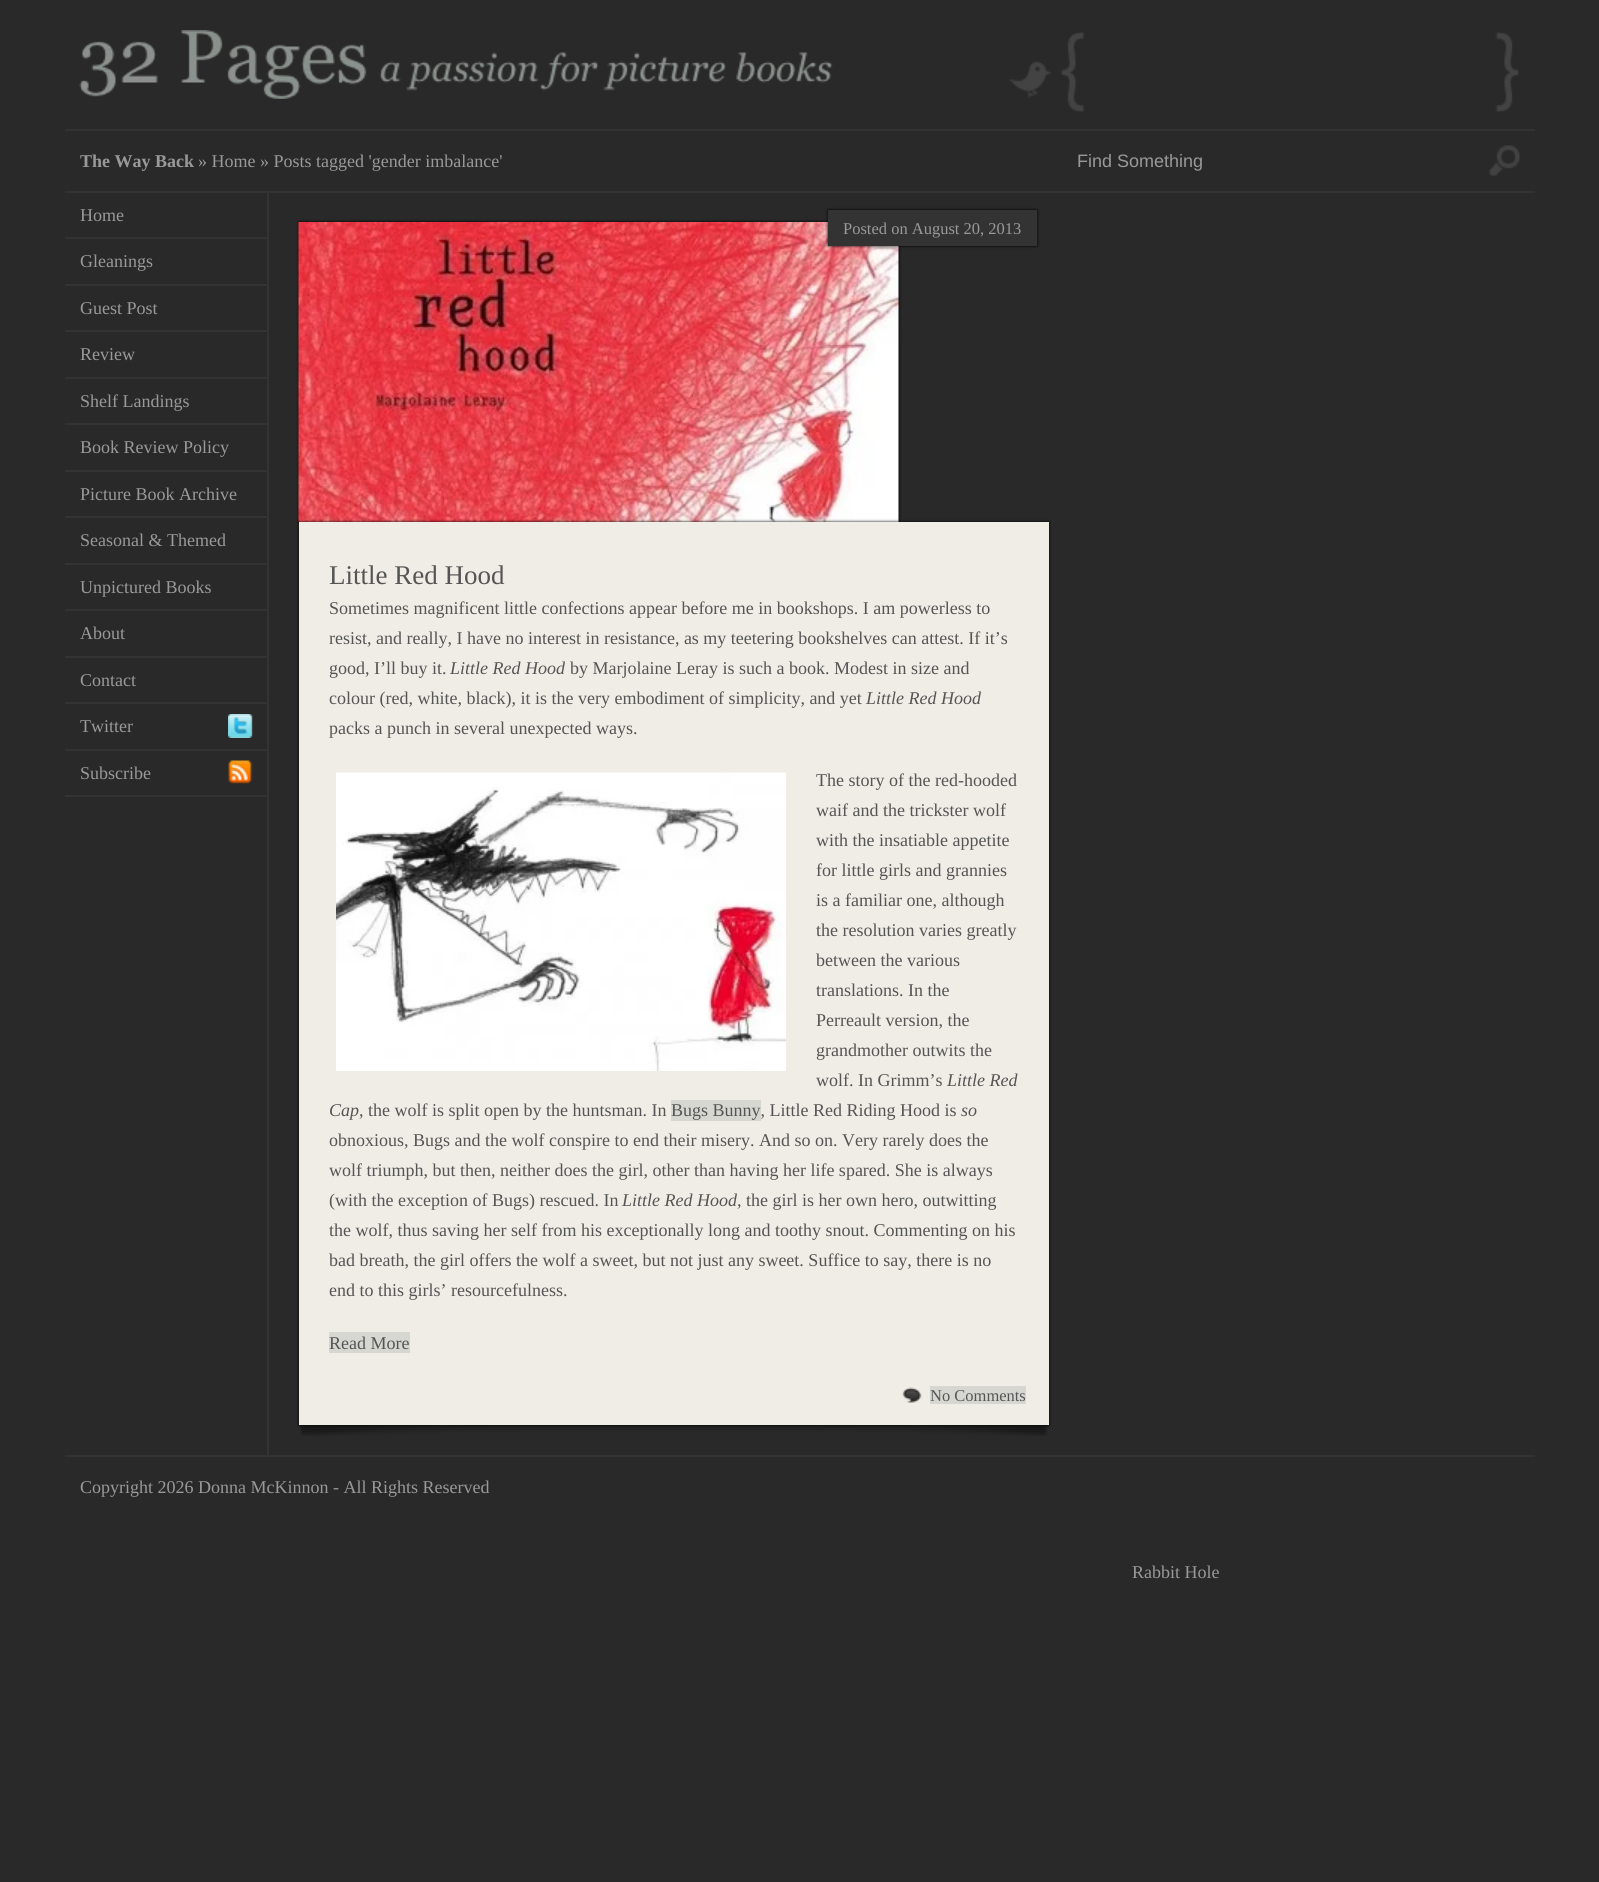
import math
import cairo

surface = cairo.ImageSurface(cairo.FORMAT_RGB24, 1599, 1882)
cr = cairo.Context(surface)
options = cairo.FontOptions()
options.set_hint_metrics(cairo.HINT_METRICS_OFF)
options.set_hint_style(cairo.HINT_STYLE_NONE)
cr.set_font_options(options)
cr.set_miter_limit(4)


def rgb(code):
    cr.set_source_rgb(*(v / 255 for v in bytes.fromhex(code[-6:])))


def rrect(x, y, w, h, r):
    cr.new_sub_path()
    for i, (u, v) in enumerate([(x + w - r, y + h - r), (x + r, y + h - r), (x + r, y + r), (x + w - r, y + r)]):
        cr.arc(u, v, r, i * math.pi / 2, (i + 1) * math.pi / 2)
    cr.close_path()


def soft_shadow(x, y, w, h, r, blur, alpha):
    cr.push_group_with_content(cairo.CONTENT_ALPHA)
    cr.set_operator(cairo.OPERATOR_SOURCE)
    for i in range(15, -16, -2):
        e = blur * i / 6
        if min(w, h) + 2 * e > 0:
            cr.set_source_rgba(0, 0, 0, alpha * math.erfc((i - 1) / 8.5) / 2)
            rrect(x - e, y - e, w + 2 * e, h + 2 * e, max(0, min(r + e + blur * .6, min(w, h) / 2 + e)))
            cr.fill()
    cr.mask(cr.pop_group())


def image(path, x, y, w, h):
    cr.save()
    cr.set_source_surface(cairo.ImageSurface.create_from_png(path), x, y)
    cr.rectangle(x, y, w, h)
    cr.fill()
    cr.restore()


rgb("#292929")
cr.paint()
image("img/1.png", 79, 30, 754, 69)
image("img/2.png", 1009, 32, 510, 80)
rgb("#333333")
cr.rectangle(65, 129, 1470, 2)
cr.fill()
cr.rectangle(65, 191, 1470, 2)
cr.fill()
image("img/3.png", 1489, 145, 31, 31)
for x, y, w, h, color in [
    (65, 237, 202, 2, "#333333"),
    (65, 284, 202, 2, "#333333"),
    (65, 330, 202, 2, "#333333"),
    (65, 377, 202, 2, "#333333"),
    (65, 423, 202, 2, "#333333"),
    (65, 470, 202, 2, "#333333"),
    (65, 516, 202, 2, "#333333"),
    (65, 563, 202, 2, "#333333"),
    (65, 609, 202, 2, "#333333"),
    (65, 656, 202, 2, "#333333"),
    (65, 702, 202, 2, "#333333"),
]:
    rgb(color)
    cr.rectangle(x, y, w, h)
    cr.fill()
image("img/4.png", 228, 714, 25, 24)
cr.rectangle(65, 749, 202, 2)
cr.fill()
image("img/5.png", 228, 760, 25, 24)
cr.rectangle(65, 795, 202, 2)
cr.fill()
cr.rectangle(267, 192, 2, 1263)
cr.fill()
rgb("#000000")
soft_shadow(299, 222, 600, 300, 0, 1.5, 1)
image("img/6.png", 298, 222, 601, 300)
soft_shadow(828, 210, 209, 36, 0, 1.5, 1)
rgb("#333333")
cr.rectangle(828, 210, 209, 36)
cr.fill()
rgb("#000000")
soft_shadow(299, 522, 750, 903, 0, 1.5, 1)
rgb("#f0ede6")
cr.rectangle(299, 522, 750, 903)
cr.fill()
image("img/7.png", 336, 772, 450, 299)
rgb("#d7d7d1")
cr.rectangle(671, 1100, 90, 21)
cr.fill()
cr.rectangle(329, 1332, 81, 21)
cr.fill()
image("img/8.png", 902, 1387, 20, 16)
cr.rectangle(930, 1386, 96, 18)
cr.fill()
image("img/9.png", 300, 1425, 748, 11)
rgb("#333333")
cr.rectangle(65, 1455, 1470, 2)
cr.fill()
cr.select_font_face("Liberation Serif", cairo.FONT_SLANT_NORMAL, cairo.FONT_WEIGHT_BOLD)
cr.set_font_size(18)
rgb("#999999")
cr.move_to(80, 167)
cr.show_text("The Way Back")
cr.select_font_face("Liberation Serif")
cr.move_to(198, 167)
cr.show_text("» Home » Posts tagged 'gender imbalance'")
cr.select_font_face("Liberation Sans")
cr.move_to(1077, 167)
cr.show_text("Find Something")
cr.select_font_face("Liberation Serif")
for x, y, s in [
    (80, 221, "Home"),
    (80, 267, "Gleanings"),
    (80, 314, "Guest Post"),
    (80, 360, "Review"),
    (80, 407, "Shelf Landings"),
    (80, 453, "Book Review Policy"),
    (80, 500, "Picture Book Archive"),
    (80, 546, "Seasonal & Themed"),
    (80, 593, "Unpictured Books"),
    (80, 639, "About"),
    (80, 686, "Contact"),
    (80, 732, "Twitter"),
    (80, 779, "Subscribe"),
]:
    cr.move_to(x, y)
    cr.show_text(s)
cr.set_font_size(16.5)
cr.move_to(843, 234)
cr.show_text("Posted on August 20, 2013")
cr.set_font_size(27)
rgb("#555555")
cr.move_to(329, 584)
cr.show_text("Little Red Hood")
cr.set_font_size(18)
for x, y, s in [
    (329, 614, "Sometimes magnificent little confections appear before me in bookshops. I am powerless to"),
    (329, 644, "resist, and really, I have no interest in resistance, as my teetering bookshelves can attest. If it’s"),
    (329, 674, "good, I’ll buy it."),
]:
    cr.move_to(x, y)
    cr.show_text(s)
cr.select_font_face("Liberation Serif", cairo.FONT_SLANT_ITALIC)
cr.move_to(450, 674)
cr.show_text("Little Red Hood")
cr.select_font_face("Liberation Serif")
cr.move_to(570, 674)
cr.show_text("by Marjolaine Leray is such a book. Modest in size and")
cr.move_to(329, 704)
cr.show_text("colour (red, white, black), it is the very embodiment of simplicity, and yet")
cr.select_font_face("Liberation Serif", cairo.FONT_SLANT_ITALIC)
cr.move_to(866, 704)
cr.show_text("Little Red Hood")
cr.select_font_face("Liberation Serif")
for x, y, s in [
    (329, 734, "packs a punch in several unexpected ways."),
    (816, 786, "The story of the red-hooded"),
    (816, 816, "waif and the trickster wolf"),
    (816, 846, "with the insatiable appetite"),
    (816, 876, "for little girls and grannies"),
    (816, 906, "is a familiar one, although"),
    (816, 936, "the resolution varies greatly"),
    (816, 966, "between the various"),
    (816, 996, "translations. In the"),
    (816, 1026, "Perreault version, the"),
    (816, 1056, "grandmother outwits the"),
    (816, 1086, "wolf. In Grimm’s"),
]:
    cr.move_to(x, y)
    cr.show_text(s)
cr.select_font_face("Liberation Serif", cairo.FONT_SLANT_ITALIC)
cr.move_to(947, 1086)
cr.show_text("Little Red")
cr.move_to(329, 1116)
cr.show_text("Cap")
cr.select_font_face("Liberation Serif")
cr.move_to(359, 1116)
cr.show_text(", the wolf is split open by the huntsman. In")
cr.move_to(671, 1116)
cr.show_text("Bugs Bunny, Little Red Riding Hood is")
cr.select_font_face("Liberation Serif", cairo.FONT_SLANT_ITALIC)
cr.move_to(961, 1116)
cr.show_text("so")
cr.select_font_face("Liberation Serif")
for x, y, s in [
    (329, 1146, "obnoxious, Bugs and the wolf conspire to end their misery. And so on. Very rarely does the"),
    (329, 1176, "wolf triumph, but then, neither does the girl, other than having her life spared. She is always"),
    (329, 1206, "(with the exception of Bugs) rescued. In"),
]:
    cr.move_to(x, y)
    cr.show_text(s)
cr.select_font_face("Liberation Serif", cairo.FONT_SLANT_ITALIC)
cr.move_to(622, 1206)
cr.show_text("Little Red Hood,")
cr.select_font_face("Liberation Serif")
for x, y, s in [
    (746, 1206, "the girl is her own hero, outwitting"),
    (329, 1236, "the wolf, thus saving her self from his exceptionally long and toothy snout. Commenting on his"),
    (329, 1266, "bad breath, the girl offers the wolf a sweet, but not just any sweet. Suffice to say, there is no"),
    (329, 1296, "end to this girls’ resourcefulness."),
    (329, 1349, "Read More"),
]:
    cr.move_to(x, y)
    cr.show_text(s)
cr.set_font_size(16.5)
cr.move_to(930, 1401)
cr.show_text("No Comments")
cr.set_font_size(18)
rgb("#999999")
cr.move_to(80, 1493)
cr.show_text("Copyright 2026 Donna McKinnon - All Rights Reserved")
cr.move_to(1132, 1578)
cr.show_text("Rabbit Hole")
surface.write_to_png("page.png")
